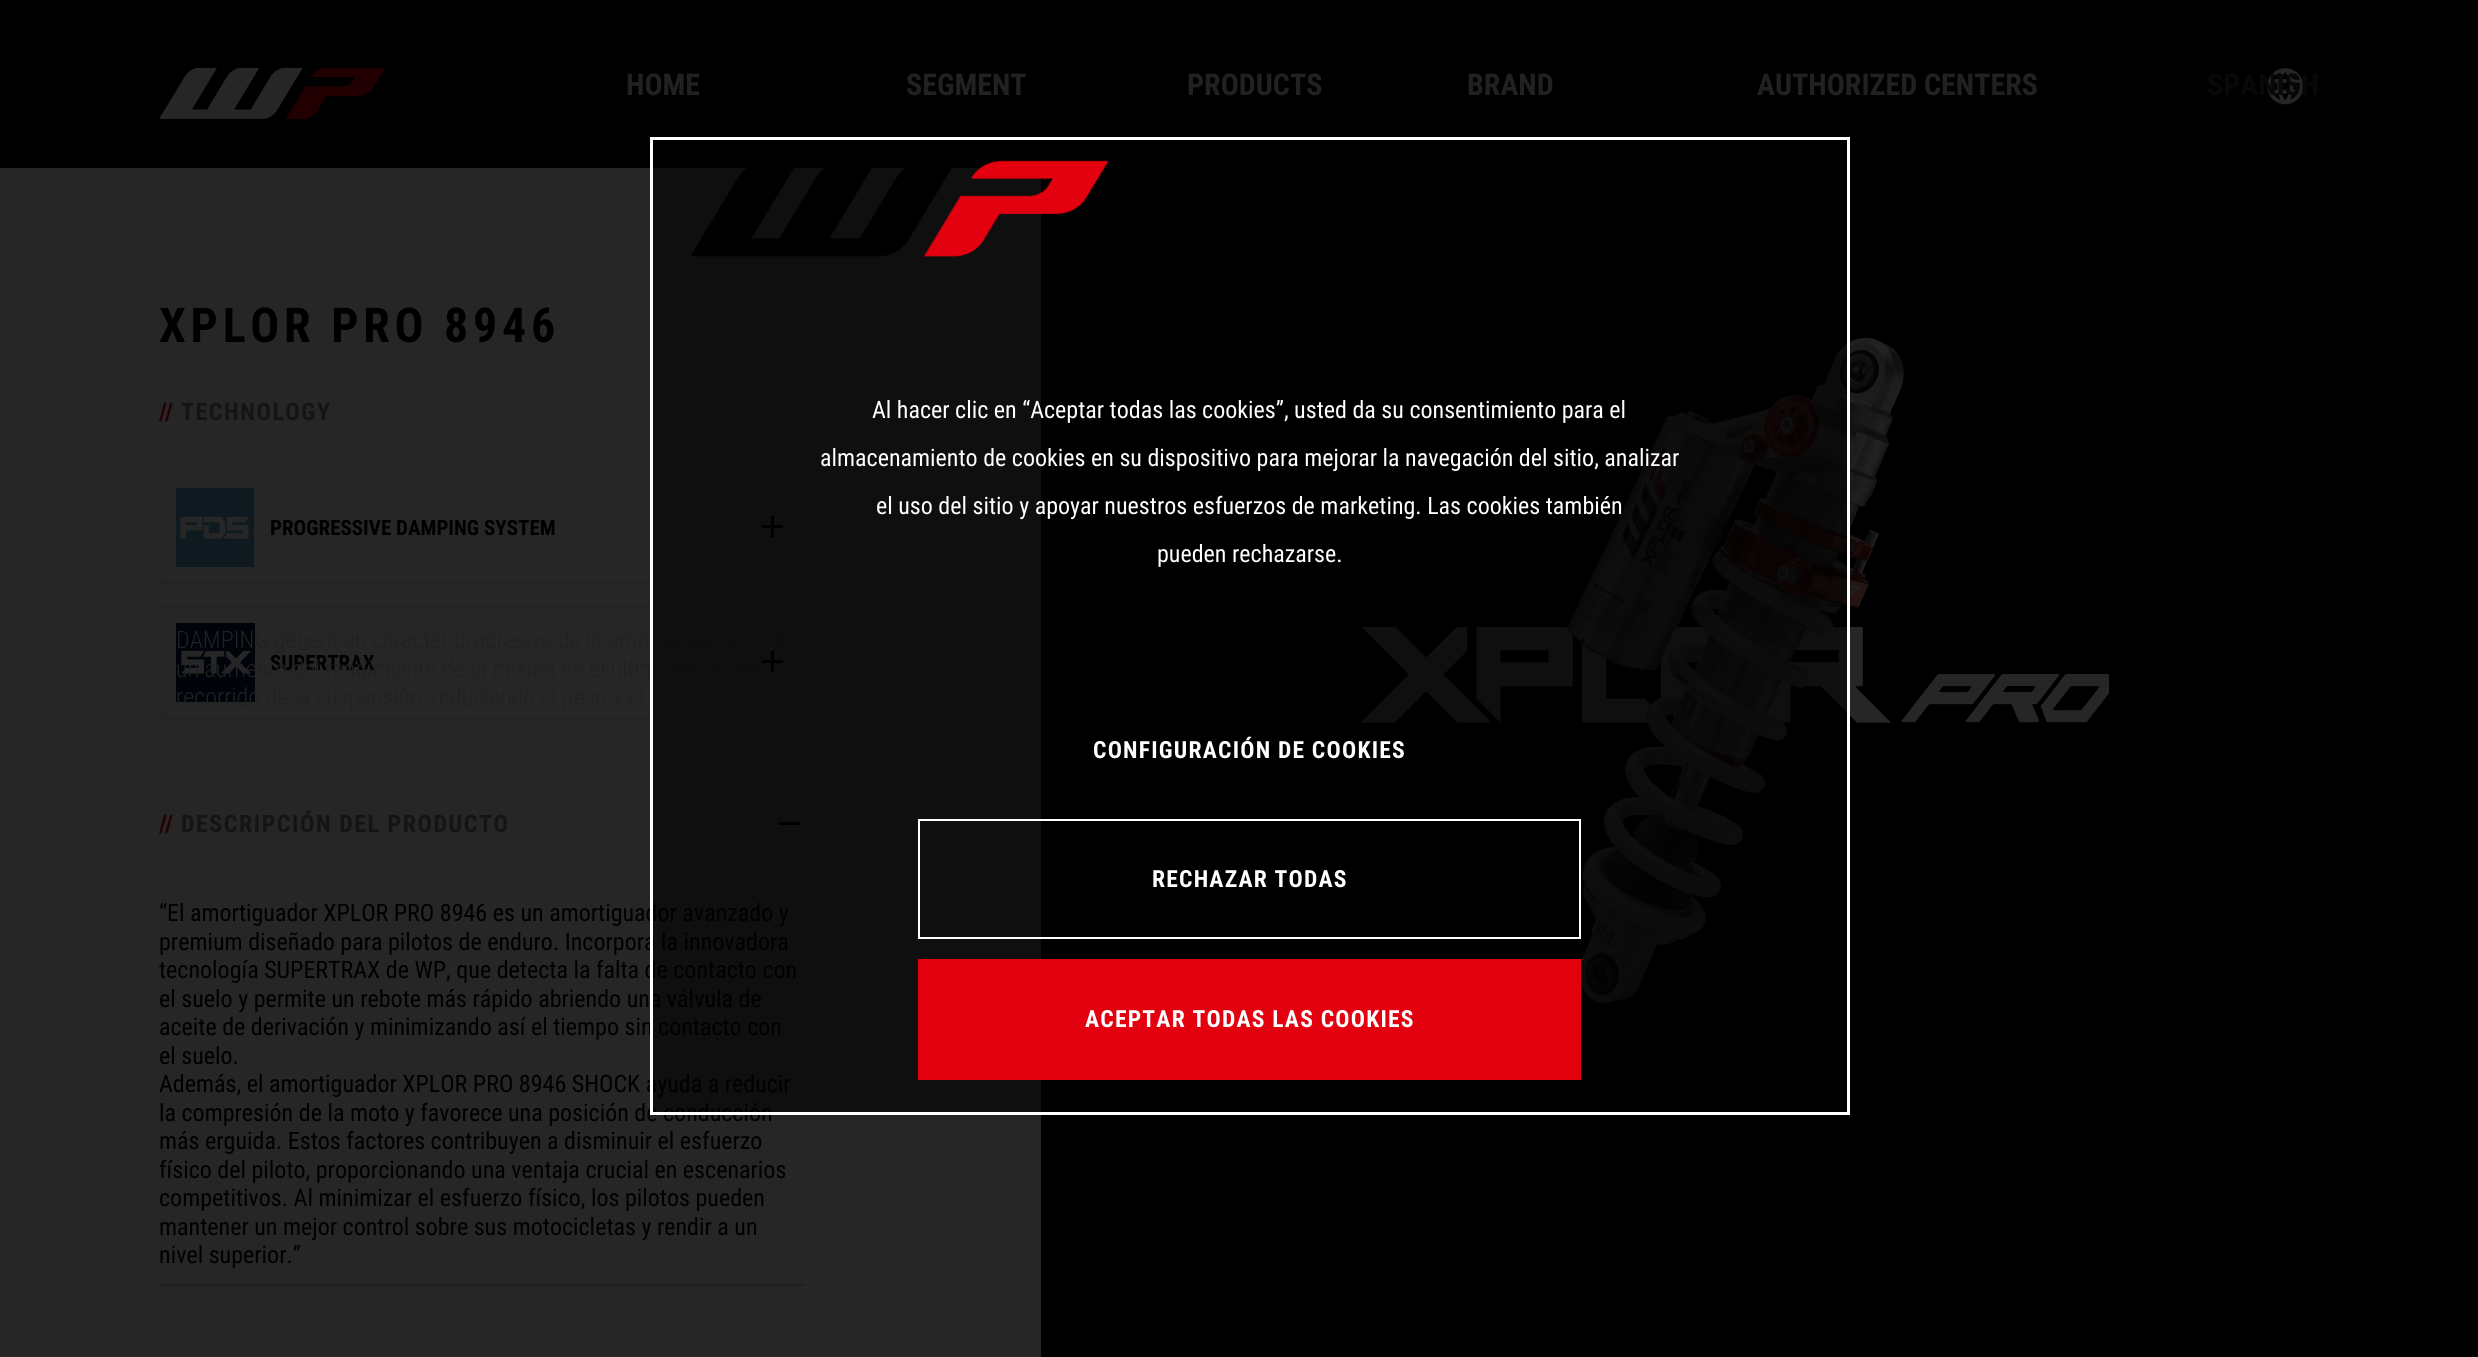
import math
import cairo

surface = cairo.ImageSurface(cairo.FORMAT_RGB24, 2478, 1357)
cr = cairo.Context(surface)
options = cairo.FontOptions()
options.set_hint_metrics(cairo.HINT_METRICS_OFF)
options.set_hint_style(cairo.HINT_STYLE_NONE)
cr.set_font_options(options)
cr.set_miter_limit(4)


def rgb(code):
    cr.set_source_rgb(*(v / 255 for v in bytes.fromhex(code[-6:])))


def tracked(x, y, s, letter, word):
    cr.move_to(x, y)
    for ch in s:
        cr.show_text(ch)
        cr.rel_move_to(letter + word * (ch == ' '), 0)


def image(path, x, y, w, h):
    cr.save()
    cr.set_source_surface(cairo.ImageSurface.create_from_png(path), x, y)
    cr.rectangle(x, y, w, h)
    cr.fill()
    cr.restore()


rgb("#262626")
cr.paint()
rgb("#000000")
cr.rectangle(0, 0, 2478, 168)
cr.fill()
image("img/1.png", 159, 68, 227, 51)
image("img/2.png", 2267, 68, 37, 37)
cr.rectangle(160, 472, 643, 111)
rgb("#232323")
cr.stroke()
image("img/3.png", 176, 488, 78, 79)
image("img/4.png", 762, 516, 21, 21)
cr.rectangle(160, 607, 643, 111)
cr.stroke()
image("img/5.png", 176, 623, 79, 79)
for x, y, w, h, color in [
    (159, 1284, 645, 2, "#1f1f1f"),
    (779, 822, 21, 3, "#000000"),
    (1041, 168, 1437, 1189, "#000000"),
]:
    rgb(color)
    cr.rectangle(x, y, w, h)
    cr.fill()
image("img/7.png", 1361, 627, 748, 96)
image("img/6.png", 1567, 337, 337, 667)
cr.select_font_face("Roboto Condensed", cairo.FONT_SLANT_NORMAL, cairo.FONT_WEIGHT_BOLD)
cr.set_font_size(30)
rgb("#212122")
for x, y, s in [
    (626, 95, "HOME"),
    (906, 95, "SEGMENT"),
    (1187, 95, "PRODUCTS"),
    (1467, 95, "BRAND"),
    (1757, 95, "AUTHORIZED CENTERS"),
]:
    cr.move_to(x, y)
    cr.show_text(s)
rgb("#080808")
cr.move_to(2207, 95)
cr.show_text("SPANISH")
cr.set_font_size(48)
rgb("#000000")
tracked(159, 342, "XPLOR PRO 8946", 4.75, 0)
cr.set_font_size(24)
rgb("#220002")
cr.move_to(159, 420)
cr.show_text("/")
cr.move_to(165, 420)
cr.show_text("/")
rgb("#141414")
tracked(181, 420, "TECHNOLOGY", 1.5, 0)
cr.set_font_size(21)
rgb("#000000")
cr.move_to(270, 535)
cr.show_text("PROGRESSIVE DAMPING SYSTEM")
cr.select_font_face("Roboto Condensed Light")
cr.set_font_size(24)
rgb("#212122")
cr.move_to(176, 648)
cr.show_text("DAMPING genera un carácter progresivo de la amortiguación, con")
cr.move_to(176, 705)
cr.show_text("recorrido de la suspensión, reduciendo el peso y el")
cr.select_font_face("Roboto Condensed", cairo.FONT_SLANT_NORMAL, cairo.FONT_WEIGHT_BOLD)
cr.set_font_size(21)
rgb("#000000")
cr.move_to(270, 670)
cr.show_text("SUPERTRAX")
cr.select_font_face("Roboto Condensed Light")
cr.set_font_size(24)
rgb("#212122")
cr.move_to(176, 677)
cr.show_text("un aumento del rendimiento de la misma en el último tercio del")
image("img/4.png", 762, 651, 21, 21)
cr.select_font_face("Roboto Condensed", cairo.FONT_SLANT_NORMAL, cairo.FONT_WEIGHT_BOLD)
rgb("#220002")
cr.move_to(159, 832)
cr.show_text("/")
cr.move_to(165, 832)
cr.show_text("/")
rgb("#141414")
tracked(181, 832, "DESCRIPCIÓN DEL PRODUCTO", 1.5, 0)
cr.select_font_face("Roboto Condensed")
rgb("#000000")
for x, y, s in [
    (159, 921, "“El amortiguador XPLOR PRO 8946 es un amortiguador avanzado y"),
    (159, 950, "premium diseñado para pilotos de enduro. Incorpora la innovadora"),
    (159, 978, "tecnología SUPERTRAX de WP, que detecta la falta de contacto con"),
    (159, 1007, "el suelo y permite un rebote más rápido abriendo una válvula de"),
    (159, 1035, "aceite de derivación y minimizando así el tiempo sin contacto con"),
    (159, 1064, "el suelo."),
    (159, 1092, "Además, el amortiguador XPLOR PRO 8946 SHOCK ayuda a reducir"),
    (159, 1121, "la compresión de la moto y favorece una posición de conducción"),
    (159, 1149, "más erguida. Estos factores contribuyen a disminuir el esfuerzo"),
    (159, 1178, "físico del piloto, proporcionando una ventaja crucial en escenarios"),
    (159, 1206, "competitivos. Al minimizar el esfuerzo físico, los pilotos pueden"),
    (159, 1235, "mantener un mejor control sobre sus motocicletas y rendir a un"),
    (159, 1263, "nivel superior.”"),
]:
    cr.move_to(x, y)
    cr.show_text(s)
cr.set_source_rgba(0, 0, 0, 0.6)
cr.rectangle(653, 168, 1194, 944)
cr.fill()
cr.rectangle(651.5, 138.5, 1197, 975)
rgb("#ffffff")
cr.set_line_width(3)
cr.stroke()
image("img/8.png", 691, 160, 418, 97)
for x, y, s in [
    (872, 418, "Al hacer clic en “Aceptar todas las cookies”, usted da su consentimiento para el"),
    (820, 466, "almacenamiento de cookies en su dispositivo para mejorar la navegación del sitio, analizar"),
    (876, 514, "el uso del sitio y apoyar nuestros esfuerzos de marketing. Las cookies también"),
    (1157, 562, "pueden rechazarse."),
]:
    cr.move_to(x, y)
    cr.show_text(s)
cr.select_font_face("Roboto Condensed", cairo.FONT_SLANT_NORMAL, cairo.FONT_WEIGHT_BOLD)
cr.set_font_size(23.6)
tracked(1093, 758, "CONFIGURACIÓN DE COOKIES", 1.2, 0)
cr.rectangle(919, 820, 661, 118)
cr.set_line_width(2)
cr.stroke()
tracked(1152, 887, "RECHAZAR TODAS", 1.2, 0)
rgb("#e3000f")
cr.rectangle(918, 959, 663, 121)
cr.fill()
rgb("#ffffff")
tracked(1085, 1027, "ACEPTAR TODAS LAS COOKIES", 1.2, 0)
surface.write_to_png("page.png")
